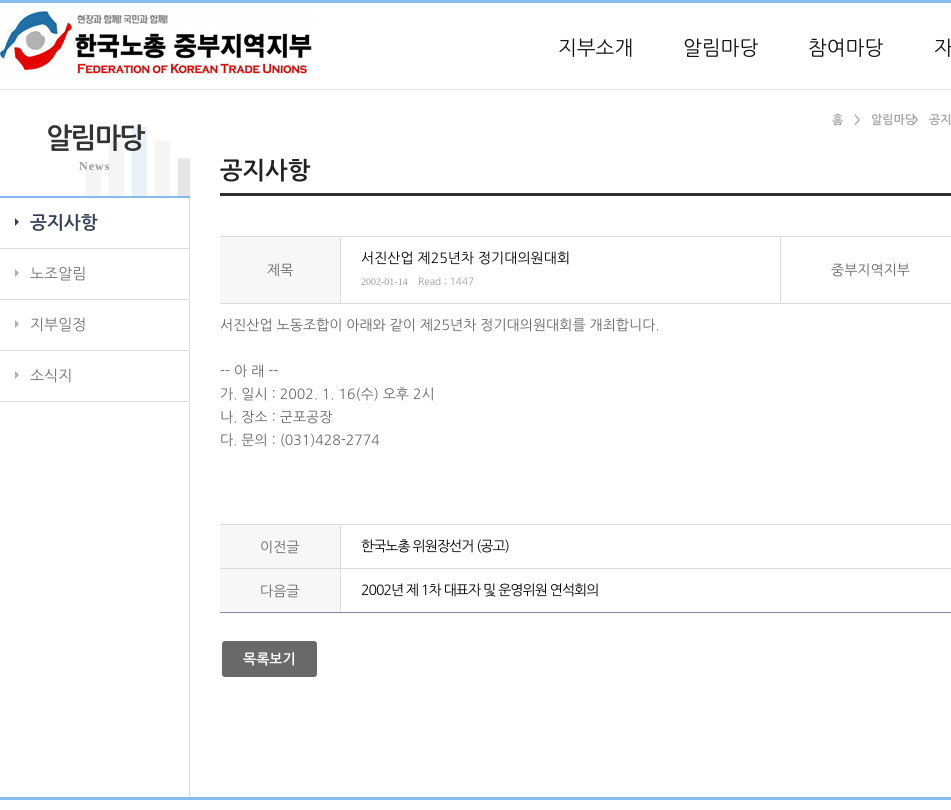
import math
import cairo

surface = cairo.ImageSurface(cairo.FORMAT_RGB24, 951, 810)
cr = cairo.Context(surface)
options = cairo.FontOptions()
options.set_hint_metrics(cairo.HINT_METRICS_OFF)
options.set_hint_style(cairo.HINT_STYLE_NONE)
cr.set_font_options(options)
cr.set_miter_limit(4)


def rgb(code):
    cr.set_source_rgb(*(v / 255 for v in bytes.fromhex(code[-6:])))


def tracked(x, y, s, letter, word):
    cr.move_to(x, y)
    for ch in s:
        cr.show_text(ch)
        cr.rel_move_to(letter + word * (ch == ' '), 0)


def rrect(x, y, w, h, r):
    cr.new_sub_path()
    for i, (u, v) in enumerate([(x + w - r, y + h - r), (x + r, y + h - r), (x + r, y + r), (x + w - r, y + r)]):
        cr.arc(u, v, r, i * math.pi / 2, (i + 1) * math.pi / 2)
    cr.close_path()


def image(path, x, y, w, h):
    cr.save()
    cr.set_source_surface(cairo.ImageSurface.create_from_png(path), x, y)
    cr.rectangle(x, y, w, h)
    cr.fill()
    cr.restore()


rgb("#ffffff")
cr.paint()
rgb("#86bbef")
cr.rectangle(0, 0, 951, 3)
cr.fill()
rgb("#e9e9e9")
cr.rectangle(0, 89, 951, 1)
cr.fill()
image("img/1.png", 0, 10, 314, 65)
image("img/2.png", 0, 127, 190, 71)
rgb("#dddddd")
cr.rectangle(189, 198, 1, 599)
cr.fill()
cr.rectangle(0, 248, 190, 1)
cr.fill()
rgb("#343f5c")
cr.new_path()
cr.move_to(15, 226)
cr.line_to(15, 218)
cr.line_to(19, 222)
cr.close_path()
cr.fill()
rgb("#dddddd")
cr.rectangle(0, 299, 190, 1)
cr.fill()
rgb("#afafaf")
cr.new_path()
cr.move_to(15, 277)
cr.line_to(15, 269)
cr.line_to(19, 273)
cr.close_path()
cr.move_to(15, 328)
cr.line_to(15, 320)
cr.line_to(19, 324)
cr.close_path()
cr.fill()
rgb("#dddddd")
cr.rectangle(0, 350, 190, 1)
cr.fill()
cr.rectangle(0, 401, 190, 1)
cr.fill()
rgb("#afafaf")
cr.new_path()
cr.move_to(15, 379)
cr.line_to(15, 371)
cr.line_to(19, 375)
cr.close_path()
cr.fill()
for x, y, w, h, color in [
    (220, 193, 731, 3, "#303030"),
    (220, 612, 731, 1, "#818793"),
    (220, 237, 120, 66, "#f7f7f7"),
    (220, 236, 731, 1, "#dbdbdb"),
    (340, 236, 1, 67, "#dbdbdb"),
    (780, 236, 1, 67, "#dbdbdb"),
    (220, 303, 731, 1, "#dbdbdb"),
    (220, 525, 120, 43, "#f7f7f7"),
    (220, 524, 731, 1, "#dbdbdb"),
    (220, 568, 731, 1, "#dbdbdb"),
    (340, 524, 1, 88, "#dbdbdb"),
    (220, 569, 120, 43, "#f7f7f7"),
]:
    rgb(color)
    cr.rectangle(x, y, w, h)
    cr.fill()
rgb("#696969")
rrect(222.5, 641.5, 94, 35, 2.5)
cr.fill_preserve()
cr.set_line_width(1)
cr.stroke()
rgb("#86bbef")
cr.rectangle(0, 797, 951, 3)
cr.fill()
cr.select_font_face("NanumGothic")
cr.set_font_size(20)
rgb("#111111")
for x, y, s in [
    (558, 55, "지부소개"),
    (683, 55, "알림마당"),
    (808, 55, "참여마당"),
    (934, 55, "자"),
]:
    cr.move_to(x, y)
    cr.show_text(s)
cr.select_font_face("NanumGothic", cairo.FONT_SLANT_NORMAL, cairo.FONT_WEIGHT_BOLD)
cr.set_font_size(28)
rgb("#333333")
tracked(46, 148, "알림마당", -2, 0)
cr.select_font_face("Liberation Serif", cairo.FONT_SLANT_NORMAL, cairo.FONT_WEIGHT_BOLD)
cr.set_font_size(12)
rgb("#999999")
tracked(79, 170, "News", 1, 0)
cr.select_font_face("NanumGothic", cairo.FONT_SLANT_NORMAL, cairo.FONT_WEIGHT_BOLD)
cr.set_font_size(18)
rgb("#343f5c")
cr.move_to(30, 229)
cr.show_text("공지사항")
cr.select_font_face("NanumGothic")
cr.set_font_size(15)
rgb("#717171")
for x, y, s in [
    (30, 279, "노조알림"),
    (30, 330, "지부일정"),
    (30, 381, "소식지"),
]:
    cr.move_to(x, y)
    cr.show_text(s)
cr.select_font_face("NanumGothic", cairo.FONT_SLANT_NORMAL, cairo.FONT_WEIGHT_BOLD)
cr.set_font_size(12)
rgb("#a5a5a5")
for x, y, s in [
    (832, 124, "홈"),
    (854, 124, ">"),
    (871, 124, "알림마당"),
    (912, 124, ">"),
    (929, 124, "공지"),
]:
    cr.move_to(x, y)
    cr.show_text(s)
cr.set_font_size(24)
rgb("#222222")
cr.move_to(220, 179)
cr.show_text("공지사항")
cr.select_font_face("NanumGothic")
cr.set_font_size(14)
rgb("#666666")
cr.move_to(267, 275)
cr.show_text("제목")
rgb("#000000")
cr.move_to(361, 263)
cr.show_text("서진산업 제25년차 정기대의원대회")
cr.select_font_face("Liberation Serif")
cr.set_font_size(10)
rgb("#999999")
cr.move_to(361, 285)
cr.show_text("2002-01-14")
cr.select_font_face("NanumGothic")
cr.move_to(418, 285)
cr.show_text("Read : 1447")
cr.set_font_size(14)
rgb("#666666")
for x, y, s in [
    (831, 275, "중부지역지부"),
    (220, 330, "서진산업 노동조합이 아래와 같이 제25년차 정기대의원대회를 개최합니다."),
    (220, 376, "-- 아 래 --"),
    (220, 399, "가. 일시 : 2002. 1. 16(수) 오후 2시"),
    (220, 422, "나. 장소 : 군포공장"),
    (220, 445, "다. 문의 : (031)428-2774"),
    (260, 552, "이전글"),
]:
    cr.move_to(x, y)
    cr.show_text(s)
rgb("#000000")
tracked(361, 551, "한국노총 위원장선거 (공고)", -1, 0)
rgb("#666666")
cr.move_to(260, 596)
cr.show_text("다음글")
rgb("#000000")
tracked(361, 595, "2002년 제 1차 대표자 및 운영위원 연석회의", -1, 0)
cr.select_font_face("NanumGothic", cairo.FONT_SLANT_NORMAL, cairo.FONT_WEIGHT_BOLD)
rgb("#ffffff")
cr.move_to(243, 664)
cr.show_text("목록보기")
surface.write_to_png("page.png")
